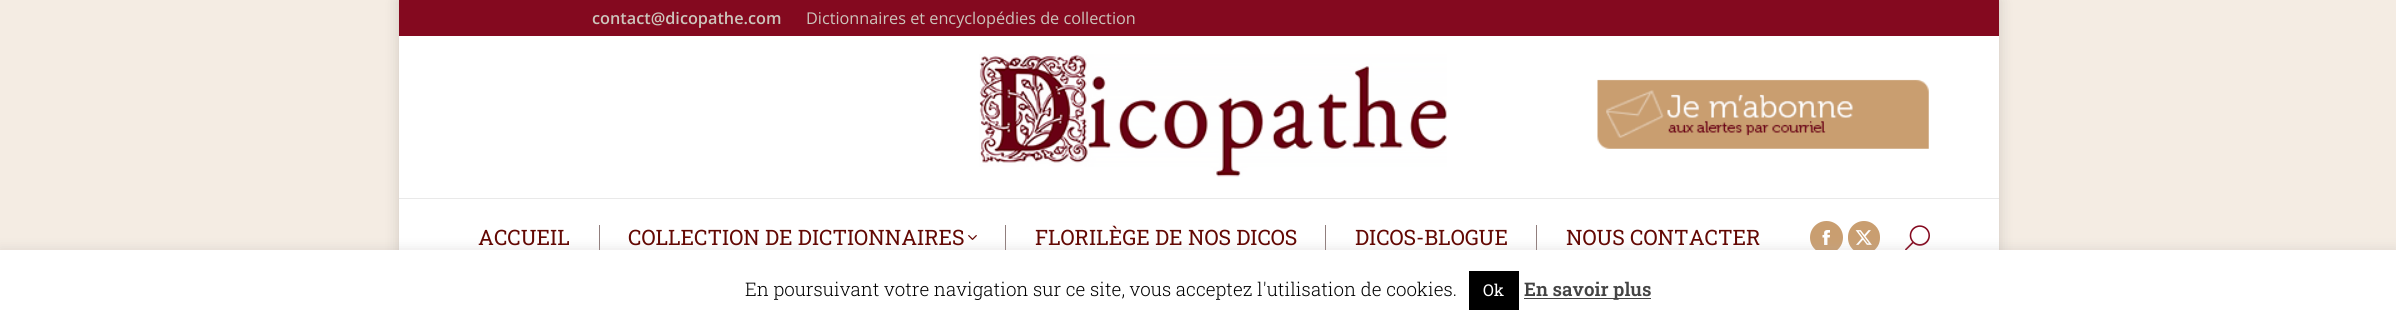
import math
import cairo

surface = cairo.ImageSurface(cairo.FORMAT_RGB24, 2396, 325)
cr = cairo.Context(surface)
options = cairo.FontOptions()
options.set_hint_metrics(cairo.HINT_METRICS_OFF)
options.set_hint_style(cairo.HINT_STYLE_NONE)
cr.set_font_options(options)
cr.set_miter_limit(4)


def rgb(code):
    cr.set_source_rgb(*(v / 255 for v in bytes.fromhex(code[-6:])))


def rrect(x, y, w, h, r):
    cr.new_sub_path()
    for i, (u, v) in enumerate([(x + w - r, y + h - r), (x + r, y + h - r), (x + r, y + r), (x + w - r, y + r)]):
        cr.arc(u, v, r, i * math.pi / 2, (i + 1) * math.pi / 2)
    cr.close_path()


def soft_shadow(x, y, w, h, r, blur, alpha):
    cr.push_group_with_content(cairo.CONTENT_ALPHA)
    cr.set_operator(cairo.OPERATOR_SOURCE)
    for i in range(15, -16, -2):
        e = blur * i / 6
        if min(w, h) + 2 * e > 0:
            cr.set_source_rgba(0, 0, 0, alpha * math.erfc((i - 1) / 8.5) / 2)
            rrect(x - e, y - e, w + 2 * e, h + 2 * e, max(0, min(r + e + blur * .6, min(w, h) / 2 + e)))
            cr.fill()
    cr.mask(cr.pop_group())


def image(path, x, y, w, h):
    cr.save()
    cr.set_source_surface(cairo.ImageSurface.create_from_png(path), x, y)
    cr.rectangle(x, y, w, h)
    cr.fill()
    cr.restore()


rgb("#f4ece3")
cr.paint()
rgb("#000000")
soft_shadow(399, 0, 1600, 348, 0, 7.5, 0.15)
rgb("#ffffff")
cr.rectangle(399, 36, 1600, 214)
cr.fill()
rgb("#84091f")
cr.rectangle(399, 0, 1600, 36)
cr.fill()
image("img/1.png", 979, 54, 468, 123)
image("img/2.png", 1597, 79, 332, 70)
rgb("#e9e9e9")
cr.rectangle(399, 198, 1600, 1)
cr.fill()
rgb("#917e7d")
cr.rectangle(599, 225, 1, 25)
cr.fill()
image("img/3.png", 968, 235, 9, 5)
for x, y, w, h, color in [
    (1005, 225, 1, 25, "#917e7d"),
    (1325, 225, 1, 25, "#917e7d"),
    (1536, 225, 1, 25, "#917e7d"),
]:
    rgb(color)
    cr.rectangle(x, y, w, h)
    cr.fill()
rgb("#c99e70")
cr.arc(1826.5, 237.5, 16.5, 0, 2 * math.pi)
cr.fill()
image("img/4.png", 1822, 230, 8, 15)
rrect(1848, 221, 32, 33, 16)
cr.fill()
image("img/5.png", 1855, 230, 17, 15)
image("img/6.png", 1905, 225, 25, 25)
rgb("#acabab")
soft_shadow(0, 249, 2396, 75, 0, 6, 0.3)
for x, y, w, h, color in [
    (0, 250, 2396, 75, "#ffffff"),
    (1469, 271, 50, 39, "#000000"),
    (1524, 298, 127, 1, "#444444"),
]:
    rgb(color)
    cr.rectangle(x, y, w, h)
    cr.fill()
cr.select_font_face("Open Sans SemiBold")
cr.set_font_size(16.25)
rgb("#ccc4bb")
cr.move_to(592, 24)
cr.show_text("contact@dicopathe.com")
cr.select_font_face("Open Sans")
cr.move_to(806, 24)
cr.show_text("Dictionnaires et encyclopédies de collection")
cr.select_font_face("Roboto Slab")
cr.set_font_size(21.25)
rgb("#630803")
for x, y, s in [
    (478, 245, "ACCUEIL"),
    (628, 245, "COLLECTION DE DICTIONNAIRES"),
    (1035, 245, "FLORILÈGE DE NOS DICOS"),
    (1355, 245, "DICOS-BLOGUE"),
    (1566, 245, "NOUS CONTACTER"),
]:
    cr.move_to(x, y)
    cr.show_text(s)
cr.select_font_face("Roboto Slab Light")
cr.set_font_size(18.75)
rgb("#000000")
cr.move_to(745, 296)
cr.show_text("En poursuivant votre navigation sur ce site, vous acceptez l'utilisation de cookies.")
cr.select_font_face("Roboto Slab")
cr.set_font_size(16.25)
rgb("#ffffff")
cr.move_to(1483, 296)
cr.show_text("Ok")
cr.select_font_face("Roboto Slab SemiBold")
cr.set_font_size(18.75)
rgb("#444444")
cr.move_to(1524, 296)
cr.show_text("En savoir plus")
surface.write_to_png("page.png")
